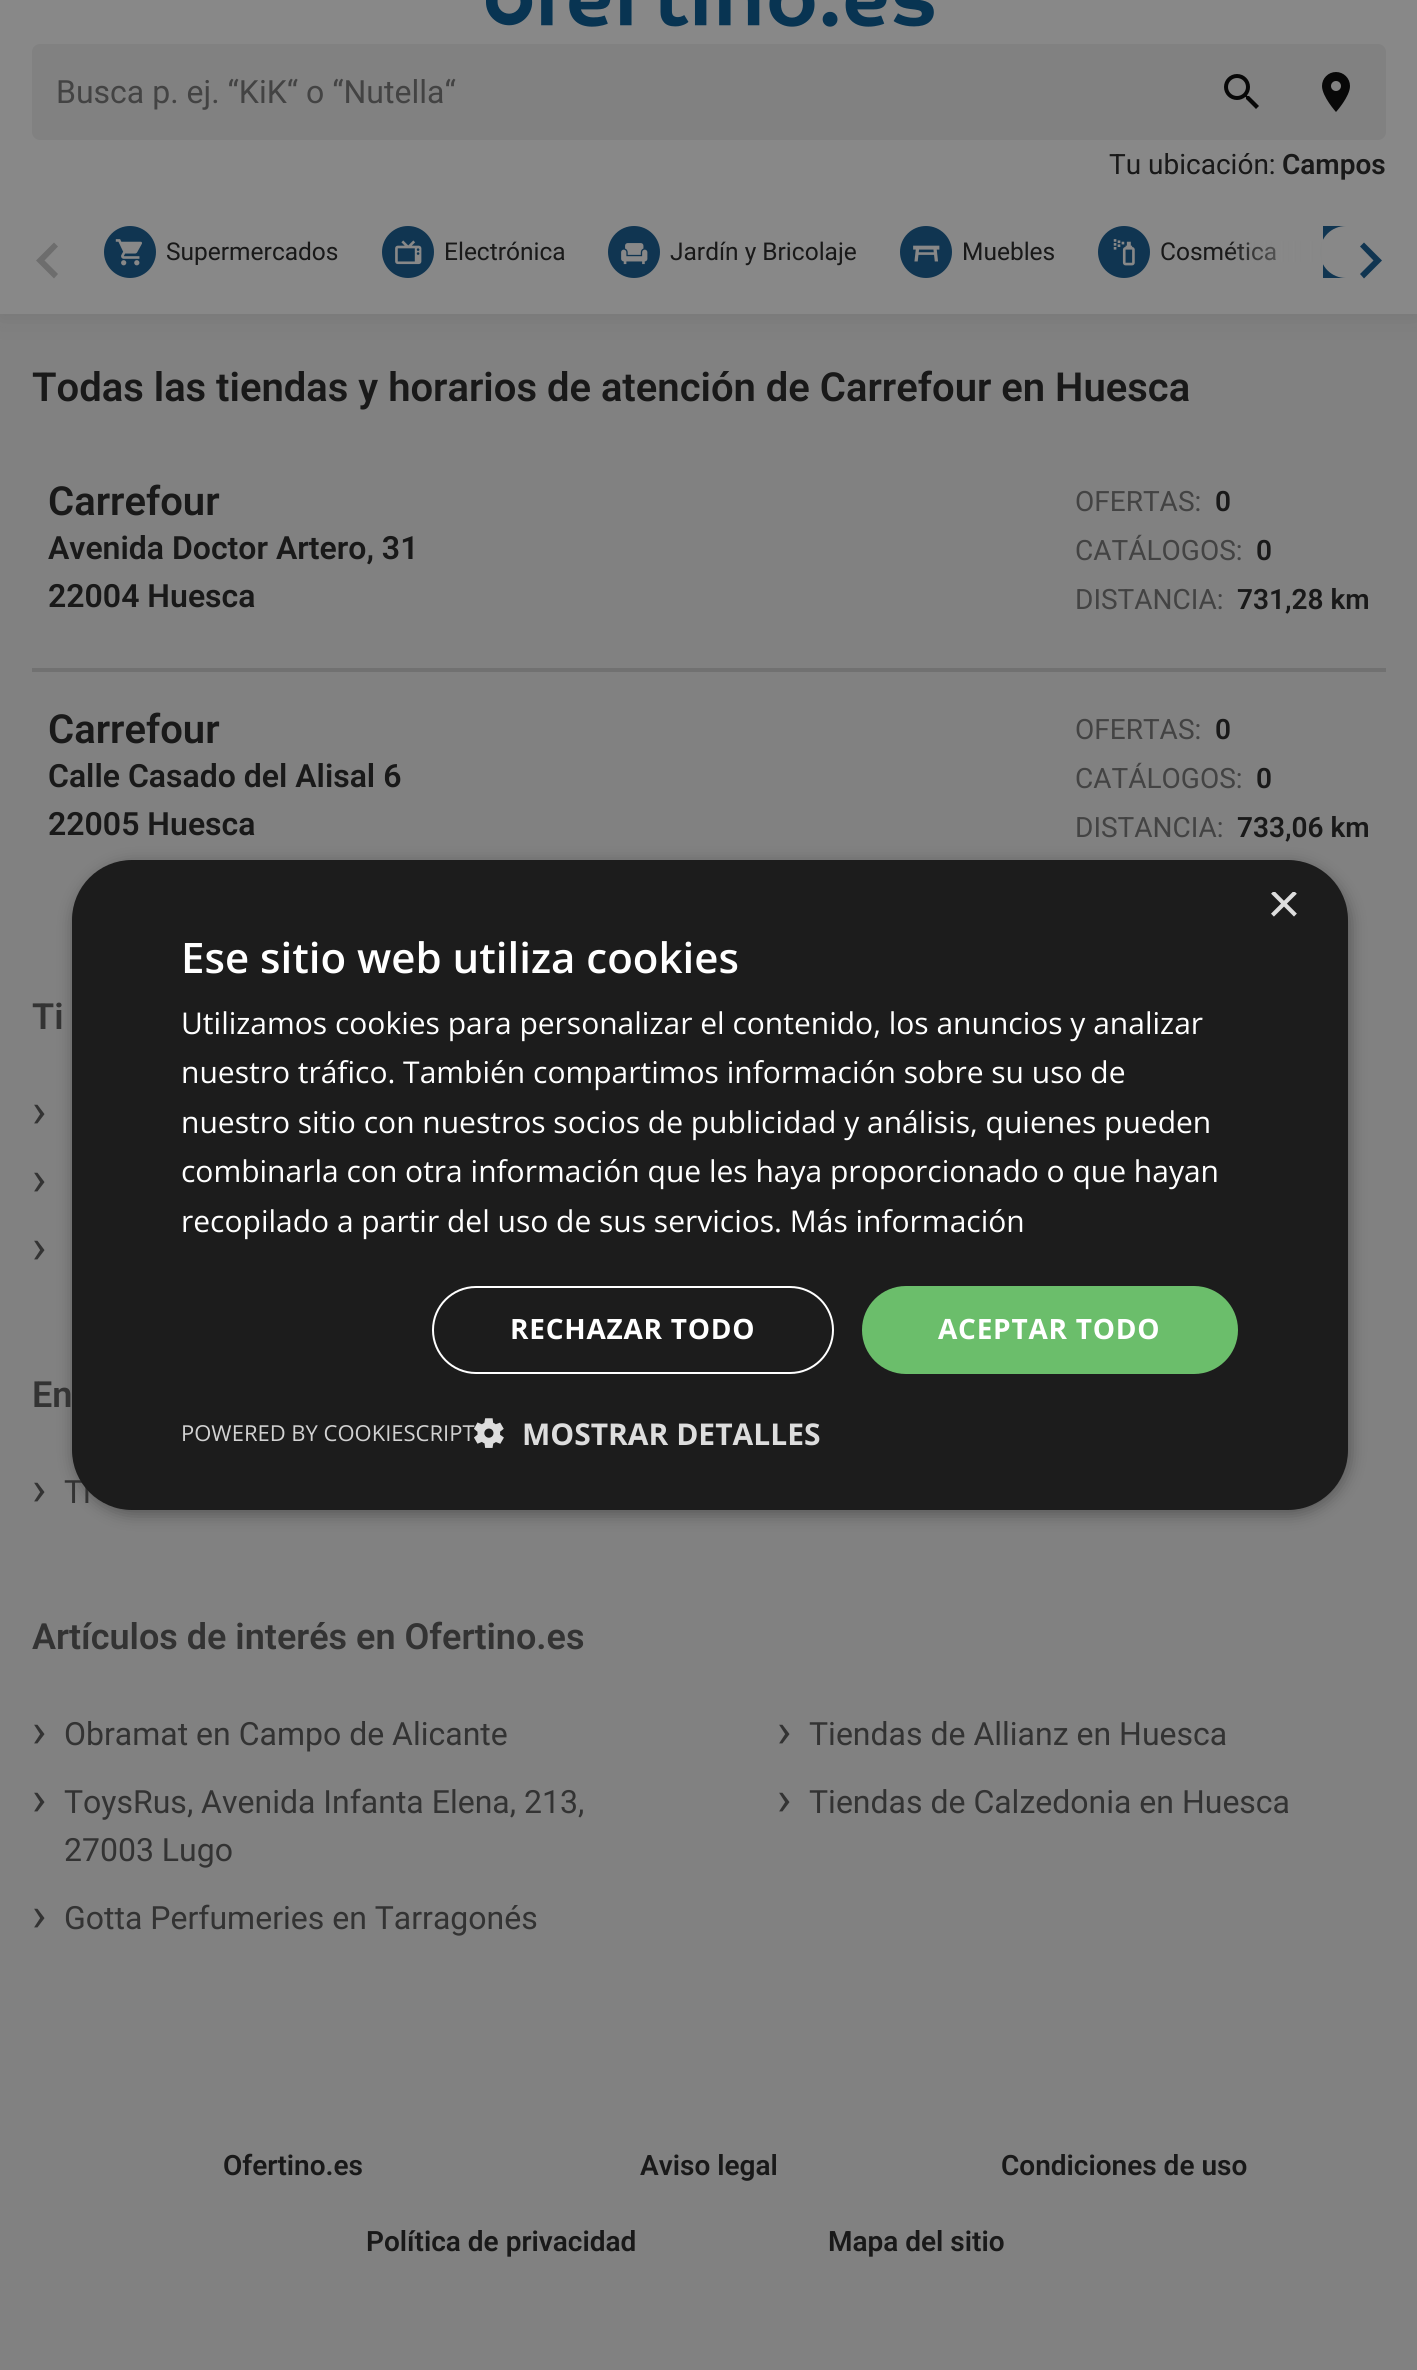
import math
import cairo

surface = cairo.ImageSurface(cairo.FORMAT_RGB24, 1417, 2370)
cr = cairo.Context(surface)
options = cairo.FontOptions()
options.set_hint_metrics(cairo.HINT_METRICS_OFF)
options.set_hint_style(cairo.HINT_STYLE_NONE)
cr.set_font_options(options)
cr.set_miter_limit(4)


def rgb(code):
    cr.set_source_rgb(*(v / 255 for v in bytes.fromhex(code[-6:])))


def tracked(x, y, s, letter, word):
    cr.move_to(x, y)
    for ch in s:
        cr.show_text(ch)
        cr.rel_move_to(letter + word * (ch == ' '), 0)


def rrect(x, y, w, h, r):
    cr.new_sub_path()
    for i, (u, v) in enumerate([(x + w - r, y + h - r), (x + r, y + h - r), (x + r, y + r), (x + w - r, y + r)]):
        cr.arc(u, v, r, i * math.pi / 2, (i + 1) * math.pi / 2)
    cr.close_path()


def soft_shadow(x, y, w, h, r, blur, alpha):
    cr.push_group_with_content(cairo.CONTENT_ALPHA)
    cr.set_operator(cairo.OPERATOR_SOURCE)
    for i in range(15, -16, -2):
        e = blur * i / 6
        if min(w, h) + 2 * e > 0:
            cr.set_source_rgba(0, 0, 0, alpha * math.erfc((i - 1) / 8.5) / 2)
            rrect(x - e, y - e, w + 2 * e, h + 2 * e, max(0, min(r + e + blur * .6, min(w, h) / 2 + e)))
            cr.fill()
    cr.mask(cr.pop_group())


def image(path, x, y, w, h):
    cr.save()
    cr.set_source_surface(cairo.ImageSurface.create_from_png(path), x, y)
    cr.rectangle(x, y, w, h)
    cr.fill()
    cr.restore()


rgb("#818181")
cr.paint()
rgb("#191919")
soft_shadow(0, -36, 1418, 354, 0, 12, 0.1)
rgb("#888888")
cr.rectangle(0, 0, 1417, 314)
cr.fill()
image("img/1.png", 486, 0, 448, 27)
rgb("#818181")
rrect(32, 44, 1354, 96, 8)
cr.fill()
image("img/2.png", 1224, 74, 35, 35)
image("img/3.png", 1322, 72, 28, 40)
rgb("#103551")
cr.arc(130, 252, 26, 0, 2 * math.pi)
cr.fill()
image("img/4.png", 115, 239, 27, 27)
cr.arc(408, 252, 26, 0, 2 * math.pi)
cr.fill()
image("img/5.png", 395, 240, 27, 25)
cr.arc(634, 252, 26, 0, 2 * math.pi)
cr.fill()
image("img/6.png", 621, 243, 27, 22)
cr.arc(926, 252, 26, 0, 2 * math.pi)
cr.fill()
image("img/7.png", 913, 245, 27, 17)
cr.arc(1124, 252, 26, 0, 2 * math.pi)
cr.fill()
image("img/8.png", 1113, 239, 22, 27)
cr.new_path()
cr.move_to(1346, 226)
cr.line_to(1322, 226)
cr.line_to(1322, 278)
cr.line_to(1346, 278)
cr.curve_to(1331.5, 278, 1320, 266.5, 1320, 252)
cr.curve_to(1320, 237.5, 1331.5, 226, 1346, 226)
cr.close_path()
cr.fill()
rgb("#888888")
cr.rectangle(1322, 226, 1, 52)
cr.fill()
rgb("#103551")
cr.new_path()
cr.move_to(1360, 274)
cr.line_to(1373.5, 260.5)
cr.line_to(1360, 246.5)
cr.line_to(1364, 242.5)
cr.line_to(1382, 260.5)
cr.line_to(1364, 278.5)
cr.close_path()
cr.fill()
rgb("#6d6d6d")
cr.new_path()
cr.move_to(58, 274)
cr.line_to(44.5, 260.5)
cr.line_to(58, 246.5)
cr.line_to(54, 242.5)
cr.line_to(36, 260.5)
cr.line_to(54, 278.5)
cr.close_path()
cr.fill()
rgb("#717171")
cr.rectangle(32, 668, 1354, 4)
cr.fill()
rgb("#000000")
soft_shadow(74, 864, 1276, 650, 60, 8, 0.35)
cr.select_font_face("Roboto")
cr.set_font_size(32)
rgb("#434343")
cr.move_to(56, 103)
cr.show_text("Busca p. ej. “KiK“ o “Nutella“")
cr.set_font_size(28)
rgb("#191919")
cr.move_to(1109, 174)
cr.show_text("Tu ubicación:")
cr.select_font_face("Roboto SemiBold")
cr.move_to(1282, 174)
cr.show_text("Campos")
cr.select_font_face("Roboto")
cr.set_font_size(24.5)
for x, y, s in [
    (166, 260, "Supermercados"),
    (444, 260, "Electrónica"),
    (670, 260, "Jardín y Bricolaje"),
    (962, 260, "Muebles"),
    (1160, 260, "Cosmética"),
]:
    cr.move_to(x, y)
    cr.show_text(s)
gradient = cairo.LinearGradient(1322, 259, 1226, 259)
gradient.add_color_stop_rgba(0, 0.533, 0.533, 0.533, 1)
gradient.add_color_stop_rgba(1, 0.533, 0.533, 0.533, 0)
cr.set_source(gradient)
cr.rectangle(1228, 241, 94, 21)
cr.fill()
cr.select_font_face("Roboto SemiBold")
cr.set_font_size(40)
rgb("#191919")
cr.move_to(32, 401)
cr.show_text("Todas las tiendas y horarios de atención de Carrefour en Huesca")
cr.move_to(48, 515)
cr.show_text("Carrefour")
cr.set_font_size(32)
cr.move_to(48, 559)
cr.show_text("Avenida Doctor Artero, 31")
cr.move_to(48, 607)
cr.show_text("22004 Huesca")
cr.select_font_face("Roboto")
cr.set_font_size(28)
rgb("#434343")
cr.move_to(1075, 511)
cr.show_text("OFERTAS:")
cr.select_font_face("Roboto SemiBold")
rgb("#191919")
cr.move_to(1215, 511)
cr.show_text("0")
cr.select_font_face("Roboto")
rgb("#434343")
cr.move_to(1075, 560)
cr.show_text("CATÁLOGOS:")
cr.select_font_face("Roboto SemiBold")
rgb("#191919")
cr.move_to(1256, 560)
cr.show_text("0")
cr.select_font_face("Roboto")
rgb("#434343")
cr.move_to(1075, 609)
cr.show_text("DISTANCIA:")
cr.select_font_face("Roboto SemiBold")
rgb("#191919")
cr.move_to(1237, 609)
cr.show_text("731,28 km")
cr.set_font_size(40)
cr.move_to(48, 743)
cr.show_text("Carrefour")
cr.set_font_size(32)
cr.move_to(48, 787)
cr.show_text("Calle Casado del Alisal 6")
cr.move_to(48, 835)
cr.show_text("22005 Huesca")
cr.select_font_face("Roboto")
cr.set_font_size(28)
rgb("#434343")
cr.move_to(1075, 739)
cr.show_text("OFERTAS:")
cr.select_font_face("Roboto SemiBold")
rgb("#191919")
cr.move_to(1215, 739)
cr.show_text("0")
cr.select_font_face("Roboto")
rgb("#434343")
cr.move_to(1075, 788)
cr.show_text("CATÁLOGOS:")
cr.select_font_face("Roboto SemiBold")
rgb("#191919")
cr.move_to(1256, 788)
cr.show_text("0")
cr.select_font_face("Roboto")
rgb("#434343")
cr.move_to(1075, 837)
cr.show_text("DISTANCIA:")
cr.select_font_face("Roboto SemiBold")
rgb("#191919")
cr.move_to(1237, 837)
cr.show_text("733,06 km")
cr.set_font_size(36)
rgb("#333333")
cr.move_to(32, 1029)
cr.show_text("Ti")
cr.select_font_face("Roboto")
cr.set_font_size(48)
for x, y, s in [
    (32, 1127, "›"),
    (32, 1195, "›"),
    (32, 1263, "›"),
]:
    cr.move_to(x, y)
    cr.show_text(s)
cr.select_font_face("Roboto SemiBold")
cr.set_font_size(36)
cr.move_to(32, 1407)
cr.show_text("En")
cr.select_font_face("Roboto")
cr.set_font_size(48)
cr.move_to(32, 1505)
cr.show_text("›")
cr.set_font_size(32)
cr.move_to(64, 1503)
cr.show_text("Ti")
cr.select_font_face("Roboto SemiBold")
cr.set_font_size(36)
cr.move_to(32, 1649)
cr.show_text("Artículos de interés en Ofertino.es")
cr.select_font_face("Roboto")
cr.set_font_size(48)
cr.move_to(32, 1747)
cr.show_text("›")
cr.set_font_size(32)
cr.move_to(64, 1745)
cr.show_text("Obramat en Campo de Alicante")
cr.set_font_size(48)
cr.move_to(777, 1747)
cr.show_text("›")
cr.set_font_size(32)
cr.move_to(809, 1745)
cr.show_text("Tiendas de Allianz en Huesca")
cr.set_font_size(48)
cr.move_to(32, 1815)
cr.show_text("›")
cr.set_font_size(32)
cr.move_to(64, 1813)
cr.show_text("ToysRus, Avenida Infanta Elena, 213,")
cr.move_to(64, 1861)
cr.show_text("27003 Lugo")
cr.set_font_size(48)
cr.move_to(777, 1815)
cr.show_text("›")
cr.set_font_size(32)
cr.move_to(809, 1813)
cr.show_text("Tiendas de Calzedonia en Huesca")
cr.set_font_size(48)
cr.move_to(32, 1931)
cr.show_text("›")
cr.set_font_size(32)
cr.move_to(64, 1929)
cr.show_text("Gotta Perfumeries en Tarragonés")
rgb("#1c1c1c")
rrect(72, 860, 1276, 650, 60)
cr.fill()
cr.save()
cr.rectangle(1268, 892, 30, 30)
cr.clip()
cr.select_font_face("Liberation Sans")
cr.set_font_size(58)
rgb("#dddddd")
cr.move_to(1267, 923)
cr.show_text("×")
cr.restore()
cr.select_font_face("Open Sans SemiBold")
cr.set_font_size(42)
rgb("#ffffff")
cr.move_to(181, 973)
cr.show_text("Ese sitio web utiliza cookies")
cr.select_font_face("Open Sans")
cr.set_font_size(30)
for x, y, s in [
    (181, 1034, "Utilizamos cookies para personalizar el contenido, los anuncios y analizar"),
    (181, 1083, "nuestro tráfico. También compartimos información sobre su uso de"),
    (181, 1133, "nuestro sitio con nuestros socios de publicidad y análisis, quienes pueden"),
    (181, 1182, "combinarla con otra información que les haya proporcionado o que hayan"),
    (181, 1232, "recopilado a partir del uso de sus servicios. Más información"),
]:
    cr.move_to(x, y)
    cr.show_text(s)
rrect(433, 1287, 400, 86, 43)
cr.stroke()
cr.select_font_face("Open Sans", cairo.FONT_SLANT_NORMAL, cairo.FONT_WEIGHT_BOLD)
cr.set_font_size(28)
tracked(510, 1339, "RECHAZAR TODO", 0.75, 0)
rgb("#6bbe6b")
rrect(862, 1286, 376, 88, 44)
cr.fill()
rgb("#ffffff")
tracked(938, 1339, "ACEPTAR TODO", 0.75, 0)
image("img/9.png", 474, 1418, 30, 30)
cr.select_font_face("Open Sans")
cr.set_font_size(22)
rgb("#d2d2d2")
cr.move_to(181, 1441)
cr.show_text("POWERED BY COOKIESCRIPT")
cr.select_font_face("Open Sans", cairo.FONT_SLANT_NORMAL, cairo.FONT_WEIGHT_BOLD)
cr.set_font_size(30)
rgb("#dddddd")
cr.move_to(522, 1445)
cr.show_text("MOSTRAR DETALLES")
cr.select_font_face("Roboto SemiBold")
cr.set_font_size(28)
rgb("#191919")
for x, y, s in [
    (223, 2175, "Ofertino.es"),
    (640, 2175, "Aviso legal"),
    (1001, 2175, "Condiciones de uso"),
    (366, 2251, "Política de privacidad"),
    (828, 2251, "Mapa del sitio"),
]:
    cr.move_to(x, y)
    cr.show_text(s)
surface.write_to_png("page.png")
